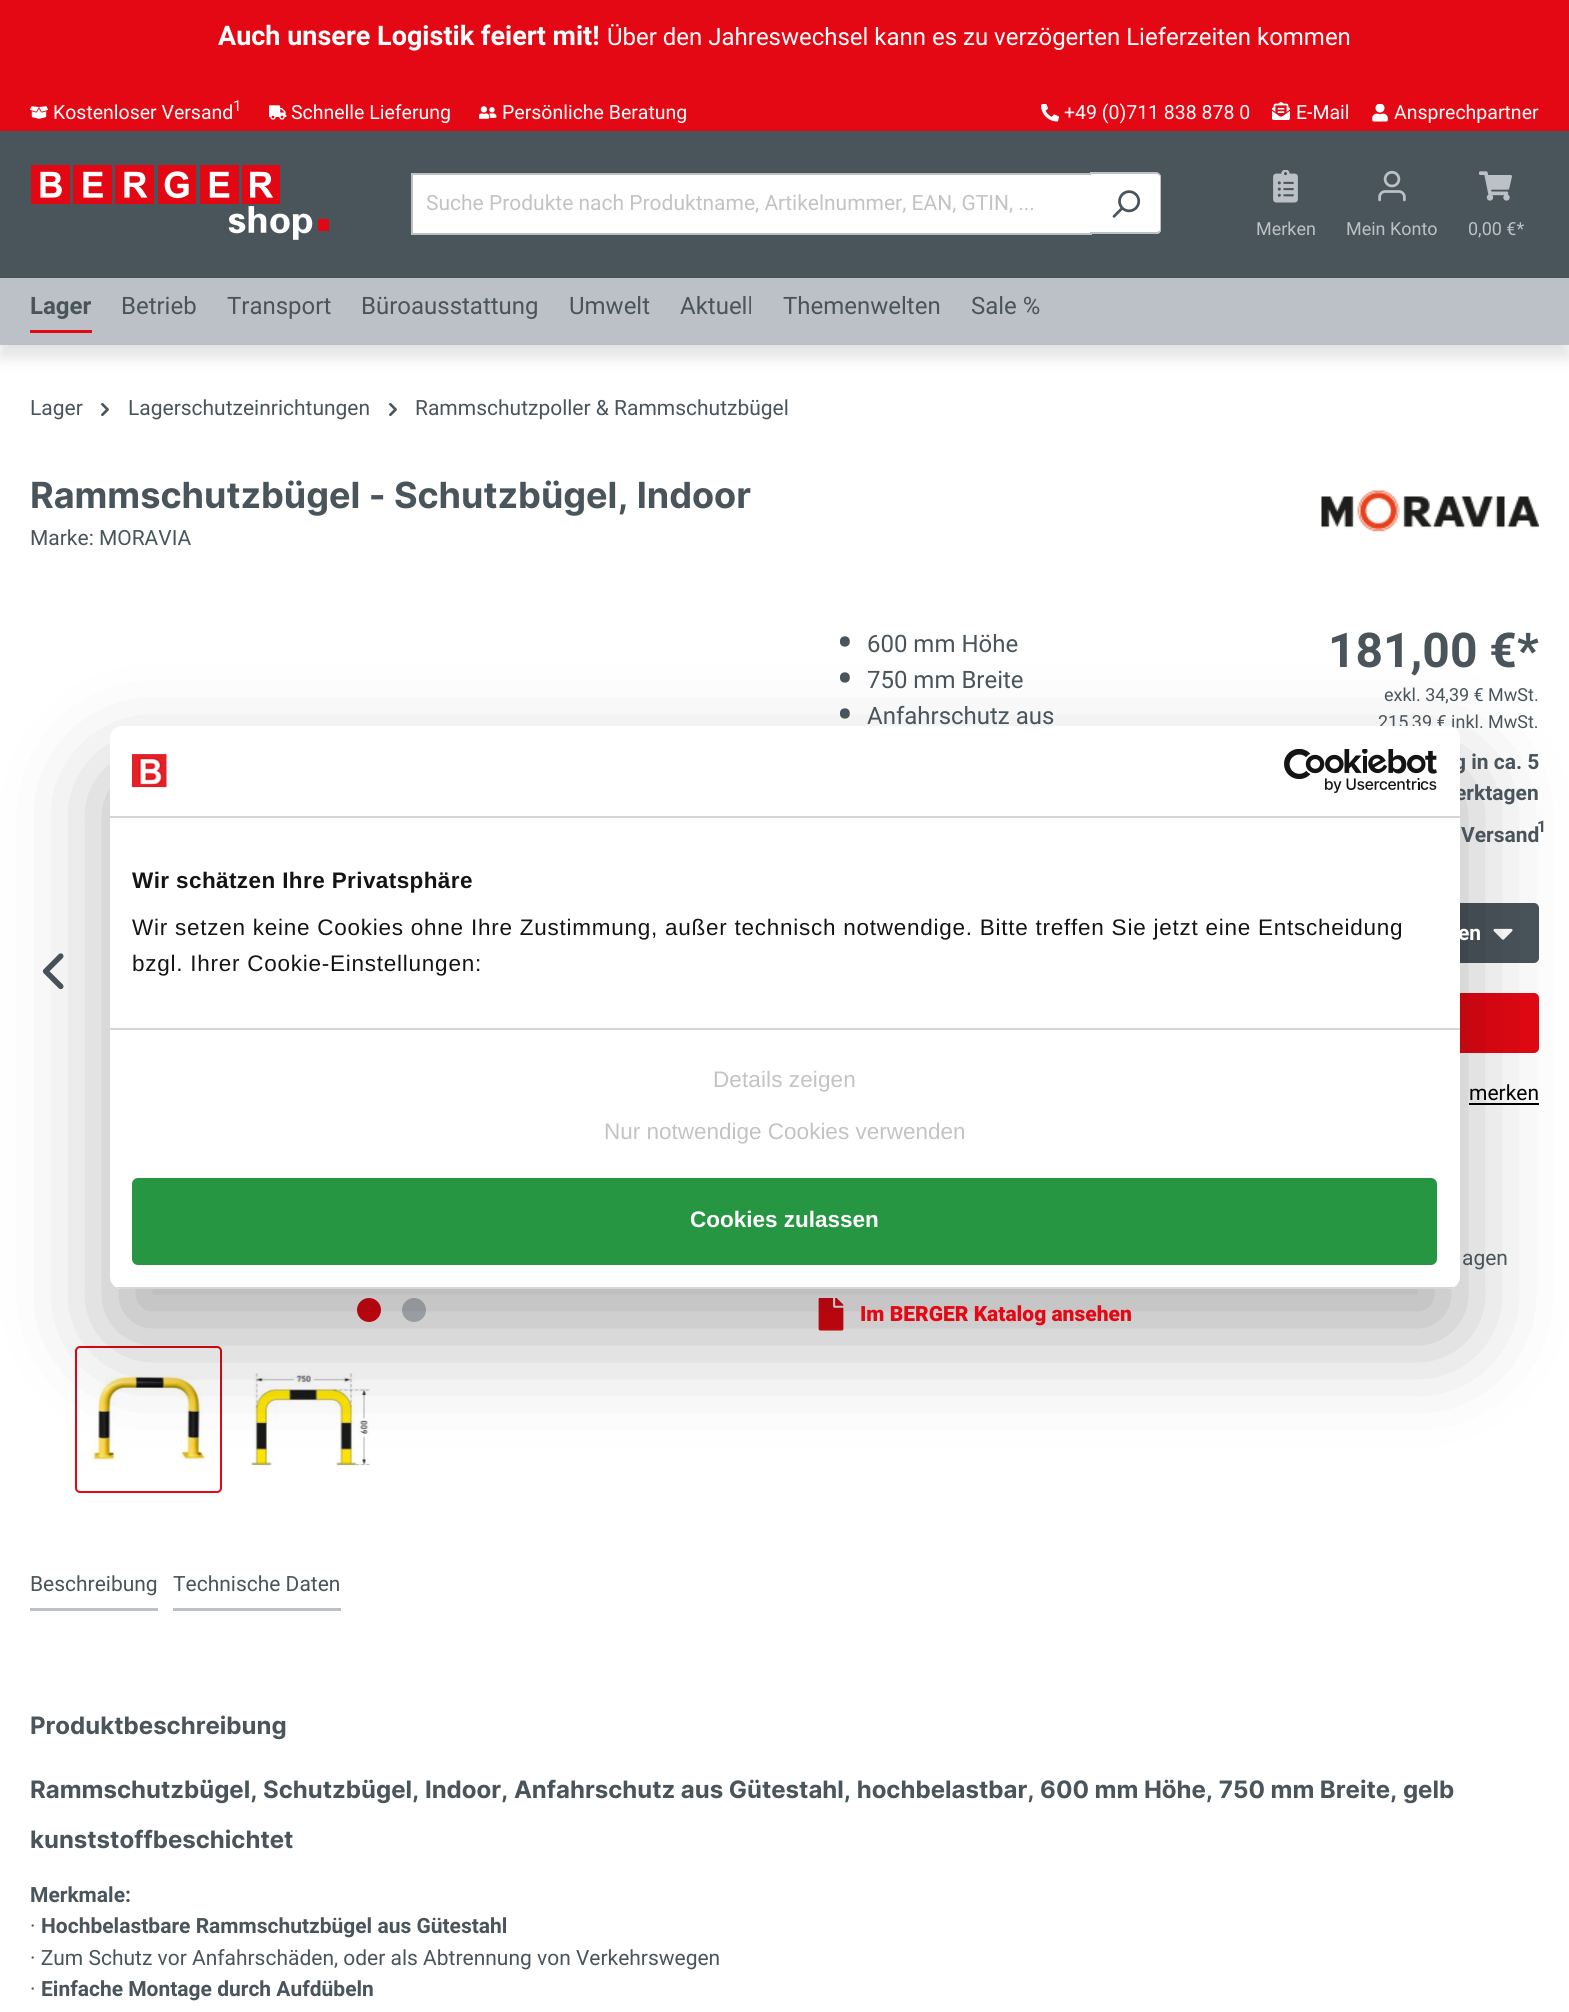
import math
import cairo

surface = cairo.ImageSurface(cairo.FORMAT_RGB24, 1569, 2012)
cr = cairo.Context(surface)
options = cairo.FontOptions()
options.set_hint_metrics(cairo.HINT_METRICS_OFF)
options.set_hint_style(cairo.HINT_STYLE_NONE)
cr.set_font_options(options)
cr.set_miter_limit(4)


def rgb(code):
    cr.set_source_rgb(*(v / 255 for v in bytes.fromhex(code[-6:])))


def tracked(x, y, s, letter, word):
    cr.move_to(x, y)
    for ch in s:
        cr.show_text(ch)
        cr.rel_move_to(letter + word * (ch == ' '), 0)


def rrect(x, y, w, h, r):
    cr.new_sub_path()
    for i, (u, v) in enumerate([(x + w - r, y + h - r), (x + r, y + h - r), (x + r, y + r), (x + w - r, y + r)]):
        cr.arc(u, v, r, i * math.pi / 2, (i + 1) * math.pi / 2)
    cr.close_path()


def soft_shadow(x, y, w, h, r, blur, alpha):
    cr.push_group_with_content(cairo.CONTENT_ALPHA)
    cr.set_operator(cairo.OPERATOR_SOURCE)
    for i in range(15, -16, -2):
        e = blur * i / 6
        if min(w, h) + 2 * e > 0:
            cr.set_source_rgba(0, 0, 0, alpha * math.erfc((i - 1) / 8.5) / 2)
            rrect(x - e, y - e, w + 2 * e, h + 2 * e, max(0, min(r + e + blur * .6, min(w, h) / 2 + e)))
            cr.fill()
    cr.mask(cr.pop_group())


def image(path, x, y, w, h):
    cr.save()
    cr.set_source_surface(cairo.ImageSurface.create_from_png(path), x, y)
    cr.rectangle(x, y, w, h)
    cr.fill()
    cr.restore()


rgb("#ffffff")
cr.paint()
rgb("#4a555b")
cr.rectangle(0, 131, 1569, 147)
cr.fill()
rgb("#e30813")
cr.rectangle(0, 0, 1569, 131)
cr.fill()
image("img/1.png", 30, 106, 18, 13)
image("img/2.png", 269, 105, 18, 15)
image("img/3.png", 479, 106, 18, 13)
image("img/4.png", 1041, 104, 18, 18)
image("img/5.png", 1272, 102, 18, 18)
image("img/6.png", 1372, 104, 16, 18)
image("img/7.png", 31, 165, 298, 75)
for x, y, w, h, color in [
    (413, 175, 678, 58, "#ffffff"),
    (411, 173, 681, 2, "#bcc1c7"),
    (411, 233, 681, 2, "#bcc1c7"),
    (411, 173, 2, 61, "#bcc1c7"),
]:
    rgb(color)
    cr.rectangle(x, y, w, h)
    cr.fill()
rgb("#ffffff")
cr.new_path()
cr.move_to(1091, 173)
cr.line_to(1156, 173)
cr.curve_to(1159, 173, 1161, 175, 1161, 178)
cr.line_to(1161, 229)
cr.curve_to(1161, 232, 1159, 234, 1156, 234)
cr.line_to(1091, 234)
cr.close_path()
cr.fill()
rgb("#bcc1c7")
cr.set_fill_rule(cairo.FILL_RULE_EVEN_ODD)
cr.new_path()
cr.move_to(1090, 172)
cr.line_to(1156, 172)
cr.curve_to(1159, 172, 1161, 175, 1161, 177)
cr.line_to(1161, 230)
cr.curve_to(1161, 232, 1159, 234, 1156, 234)
cr.line_to(1090, 234)
cr.close_path()
cr.move_to(1090, 174)
cr.line_to(1156, 174)
cr.curve_to(1158, 174, 1160, 175, 1160, 177)
cr.line_to(1160, 230)
cr.curve_to(1160, 231, 1158, 232, 1156, 232)
cr.line_to(1090, 232)
cr.close_path()
cr.fill()
image("img/8.png", 1112, 190, 29, 28)
image("img/9.png", 1273, 170, 25, 33)
image("img/10.png", 1378, 170, 28, 32)
image("img/11.png", 1479, 171, 33, 30)
rgb("#000000")
soft_shadow(0, 290, 1569, 67, 0, 8, 0.12)
rgb("#bcc1c7")
cr.rectangle(0, 278, 1569, 67)
cr.fill()
rgb("#e30813")
cr.rectangle(30, 330, 62, 3)
cr.fill()
image("img/12.png", 101, 402, 8, 14)
image("img/12.png", 389, 402, 8, 14)
image("img/13.png", 1321, 490, 218, 42)
image("img/14.png", 113, 730, 1, 1)
image("img/15.png", 42, 953, 22, 37)
cr.arc(369, 1310, 12, 0, 2 * math.pi)
cr.fill()
rgb("#bcc1c7")
cr.arc(414, 1310, 12, 0, 2 * math.pi)
cr.fill()
rrect(76, 1347, 145, 145, 4)
rgb("#e30813")
cr.stroke()
image("img/16.png", 91, 1376, 118, 89)
image("img/17.png", 250, 1373, 121, 93)
rgb("#4a545b")
rrect(1278, 904, 260, 58, 4)
cr.fill_preserve()
cr.stroke()
image("img/18.png", 1493, 928, 20, 12)
rgb("#e30813")
rrect(1185, 994, 353, 58, 4)
cr.fill_preserve()
cr.stroke()
rgb("#000000")
cr.rectangle(1469, 1103, 70, 2)
cr.fill()
image("img/19.png", 818, 1298, 26, 33)
rgb("#bcc1c7")
cr.rectangle(30, 1608, 128, 3)
cr.fill()
cr.rectangle(173, 1608, 168, 3)
cr.fill()
rgb("#000000")
soft_shadow(110, 774, 1350, 563, 12, 51, 0.3)
cr.select_font_face("Roboto", cairo.FONT_SLANT_NORMAL, cairo.FONT_WEIGHT_BOLD)
cr.set_font_size(27)
rgb("#ffffff")
cr.move_to(218, 45)
cr.show_text("Auch unsere Logistik feiert mit!")
cr.select_font_face("Roboto")
cr.set_font_size(24)
cr.move_to(607, 45)
cr.show_text("Über den Jahreswechsel kann es zu verzögerten Lieferzeiten kommen")
cr.set_font_size(19.5)
cr.move_to(53, 119)
cr.show_text("Kostenloser Versand")
cr.set_font_size(15)
cr.move_to(233, 111)
cr.show_text("1")
cr.set_font_size(19.5)
for x, y, s in [
    (291, 119, "Schnelle Lieferung"),
    (502, 119, "Persönliche Beratung"),
    (1064, 119, "+49 (0)711 838 878 0"),
    (1296, 119, "E-Mail"),
    (1394, 119, "Ansprechpartner"),
]:
    cr.move_to(x, y)
    cr.show_text(s)
cr.set_font_size(21)
rgb("#c3c3c3")
cr.move_to(426, 210)
cr.show_text("Suche Produkte nach Produktname, Artikelnummer, EAN, GTIN, ...")
cr.set_font_size(18)
rgb("#bcc1c7")
for x, y, s in [
    (1256, 235, "Merken"),
    (1346, 235, "Mein Konto"),
    (1468, 235, "0,00 €*"),
]:
    cr.move_to(x, y)
    cr.show_text(s)
cr.select_font_face("Roboto", cairo.FONT_SLANT_NORMAL, cairo.FONT_WEIGHT_BOLD)
cr.set_font_size(24)
rgb("#4a545b")
cr.move_to(30, 314)
cr.show_text("Lager")
cr.select_font_face("Roboto")
for x, y, s in [
    (121, 314, "Betrieb"),
    (227, 314, "Transport"),
    (361, 314, "Büroausstattung"),
    (569, 314, "Umwelt"),
    (680, 314, "Aktuell"),
    (783, 314, "Themenwelten"),
    (971, 314, "Sale %"),
]:
    cr.move_to(x, y)
    cr.show_text(s)
cr.set_font_size(21)
for x, y, s in [
    (30, 415, "Lager"),
    (128, 415, "Lagerschutzeinrichtungen"),
    (415, 415, "Rammschutzpoller & Rammschutzbügel"),
]:
    cr.move_to(x, y)
    cr.show_text(s)
cr.select_font_face("Inter", cairo.FONT_SLANT_NORMAL, cairo.FONT_WEIGHT_BOLD)
cr.set_font_size(36)
cr.move_to(30, 508)
cr.show_text("Rammschutzbügel - Schutzbügel, Indoor")
cr.select_font_face("Roboto")
cr.set_font_size(21)
cr.move_to(30, 545)
cr.show_text("Marke: MORAVIA")
cr.select_font_face("Roboto Medium")
cr.set_font_size(45)
cr.move_to(837, 658)
cr.show_text("•")
cr.select_font_face("Roboto")
cr.set_font_size(24)
cr.move_to(867, 652)
cr.show_text("600 mm Höhe")
cr.select_font_face("Roboto Medium")
cr.set_font_size(45)
cr.move_to(837, 694)
cr.show_text("•")
cr.select_font_face("Roboto")
cr.set_font_size(24)
cr.move_to(867, 688)
cr.show_text("750 mm Breite")
cr.select_font_face("Roboto Medium")
cr.set_font_size(45)
cr.move_to(837, 730)
cr.show_text("•")
cr.select_font_face("Roboto")
cr.set_font_size(24)
cr.move_to(867, 724)
cr.show_text("Anfahrschutz aus")
cr.select_font_face("Roboto", cairo.FONT_SLANT_NORMAL, cairo.FONT_WEIGHT_BOLD)
cr.set_font_size(48)
cr.move_to(1328, 667)
cr.show_text("181,00 €*")
cr.select_font_face("Roboto")
cr.set_font_size(18)
cr.move_to(1384, 701)
cr.show_text("exkl. 34,39 € MwSt.")
cr.move_to(1378, 728)
cr.show_text("215,39 € inkl. MwSt.")
cr.select_font_face("Roboto", cairo.FONT_SLANT_NORMAL, cairo.FONT_WEIGHT_BOLD)
cr.set_font_size(21)
for x, y, s in [
    (1454, 769, "g in ca. 5"),
    (1455, 800, "erktagen"),
    (1461, 842, "Versand"),
]:
    cr.move_to(x, y)
    cr.show_text(s)
cr.set_font_size(16)
cr.move_to(1537, 832)
cr.show_text("1")
cr.set_font_size(21)
rgb("#ffffff")
cr.move_to(1458, 940)
cr.show_text("en")
cr.select_font_face("Roboto")
rgb("#000000")
cr.move_to(1469, 1100)
cr.show_text("merken")
rgb("#4a545b")
cr.move_to(1462, 1265)
cr.show_text("agen")
cr.select_font_face("Roboto Black")
rgb("#e30813")
cr.move_to(860, 1321)
cr.show_text("Im BERGER Katalog ansehen")
cr.select_font_face("Roboto")
rgb("#4a545b")
cr.move_to(30, 1591)
cr.show_text("Beschreibung")
cr.move_to(173, 1591)
cr.show_text("Technische Daten")
cr.select_font_face("Inter", cairo.FONT_SLANT_NORMAL, cairo.FONT_WEIGHT_BOLD)
cr.set_font_size(24)
for x, y, s in [
    (30, 1734, "Produktbeschreibung"),
    (30, 1798, "Rammschutzbügel, Schutzbügel, Indoor, Anfahrschutz aus Gütestahl, hochbelastbar, 600 mm Höhe, 750 mm Breite, gelb"),
    (30, 1848, "kunststoffbeschichtet"),
]:
    cr.move_to(x, y)
    cr.show_text(s)
cr.select_font_face("Roboto", cairo.FONT_SLANT_NORMAL, cairo.FONT_WEIGHT_BOLD)
cr.set_font_size(21)
cr.move_to(30, 1902)
cr.show_text("Merkmale:")
cr.select_font_face("Roboto")
cr.move_to(30, 1933)
cr.show_text("·")
cr.select_font_face("Roboto", cairo.FONT_SLANT_NORMAL, cairo.FONT_WEIGHT_BOLD)
cr.move_to(41, 1933)
cr.show_text("Hochbelastbare Rammschutzbügel aus Gütestahl")
cr.select_font_face("Roboto")
cr.move_to(30, 1965)
cr.show_text("· Zum Schutz vor Anfahrschäden, oder als Abtrennung von Verkehrswegen")
cr.move_to(30, 1996)
cr.show_text("·")
cr.select_font_face("Roboto", cairo.FONT_SLANT_NORMAL, cairo.FONT_WEIGHT_BOLD)
cr.move_to(41, 1996)
cr.show_text("Einfache Montage durch Aufdübeln")
rgb("#ffffff")
rrect(110, 726, 1350, 563, 12)
cr.fill()
rgb("#d6d6d6")
cr.rectangle(110, 816, 1350, 2)
cr.fill()
image("img/20.png", 132, 754, 35, 34)
image("img/21.png", 1284, 749, 153, 44)
cr.rectangle(110, 1028, 1350, 2)
cr.fill()
cr.select_font_face("Liberation Sans", cairo.FONT_SLANT_NORMAL, cairo.FONT_WEIGHT_BOLD)
cr.set_font_size(22.5)
rgb("#141414")
tracked(132, 888, "Wir schätzen Ihre Privatsphäre", 0.4, 0)
cr.select_font_face("Liberation Sans")
tracked(132, 935, "Wir setzen keine Cookies ohne Ihre Zustimmung, außer technisch notwendige. Bitte treffen Sie jetzt eine Entscheidung", 0.75, 0)
tracked(132, 971, "bzgl. Ihrer Cookie-Einstellungen:", 0.75, 0)
rgb("#c3c3c3")
tracked(713, 1087, "Details zeigen", 0.1, 0)
cr.move_to(604, 1139)
cr.show_text("Nur notwendige Cookies verwenden")
cr.save()
cr.set_fill_rule(cairo.FILL_RULE_WINDING)
rrect(110, 726, 1350, 563, 12)
cr.clip()
rgb("#d6d6d6")
cr.rectangle(110, 1287, 1350, 2)
cr.fill()
cr.restore()
rgb("#269642")
rrect(133.5, 1179.5, 1302, 84, 4.5)
cr.fill_preserve()
cr.set_line_width(3)
cr.stroke()
cr.select_font_face("Liberation Sans", cairo.FONT_SLANT_NORMAL, cairo.FONT_WEIGHT_BOLD)
rgb("#ffffff")
cr.move_to(690, 1227)
cr.show_text("Cookies zulassen")
surface.write_to_png("page.png")
